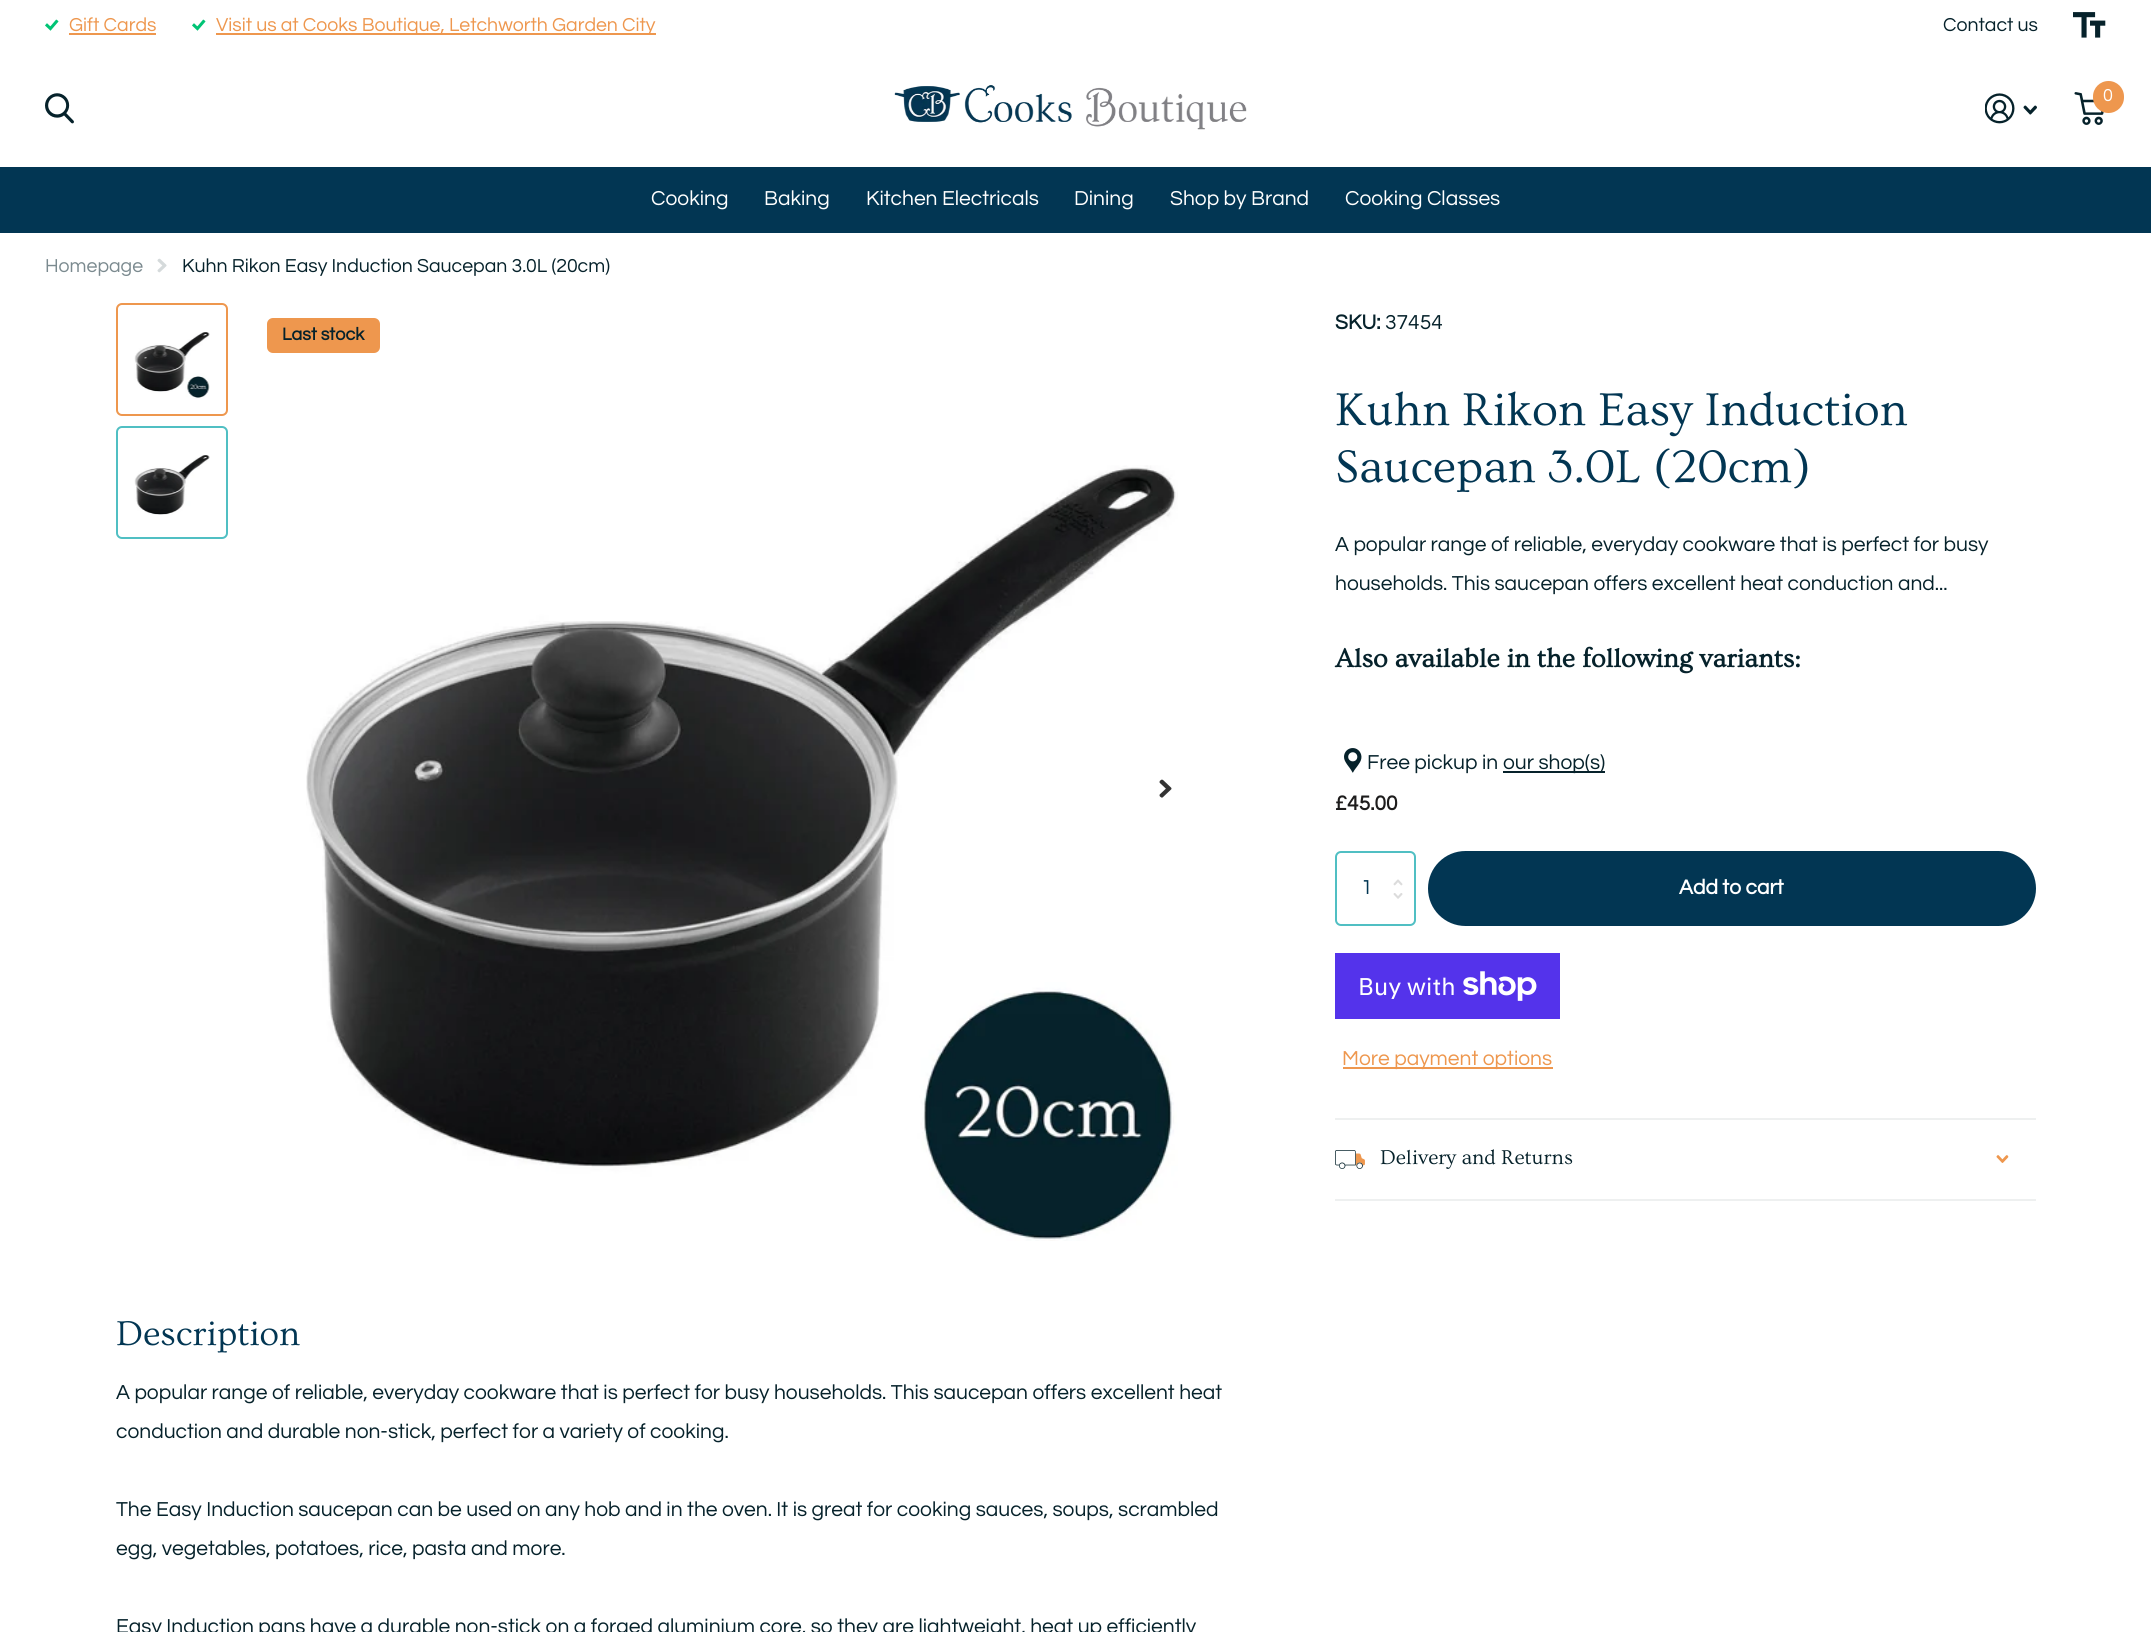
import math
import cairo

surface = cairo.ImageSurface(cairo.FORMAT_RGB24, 2151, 1632)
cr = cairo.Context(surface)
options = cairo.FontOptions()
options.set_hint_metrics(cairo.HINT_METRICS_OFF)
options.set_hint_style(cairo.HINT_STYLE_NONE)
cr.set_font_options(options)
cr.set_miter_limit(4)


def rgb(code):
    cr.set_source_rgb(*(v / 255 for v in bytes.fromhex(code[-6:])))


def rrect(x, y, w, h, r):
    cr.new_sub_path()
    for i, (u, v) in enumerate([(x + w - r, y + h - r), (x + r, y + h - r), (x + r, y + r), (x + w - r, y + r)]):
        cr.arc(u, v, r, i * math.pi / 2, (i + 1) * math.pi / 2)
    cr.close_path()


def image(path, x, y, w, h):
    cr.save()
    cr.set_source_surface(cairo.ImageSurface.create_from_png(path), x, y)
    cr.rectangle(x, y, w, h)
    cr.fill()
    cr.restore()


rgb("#ffffff")
cr.paint()
image("img/1.png", 45, 19, 14, 12)
rgb("#ee974e")
cr.rectangle(69, 33, 87, 2)
cr.fill()
image("img/1.png", 192, 19, 14, 12)
cr.rectangle(216, 33, 440, 2)
cr.fill()
image("img/2.png", 2073, 12, 33, 26)
image("img/3.png", 45, 93, 29, 31)
image("img/4.png", 894, 85, 353, 45)
image("img/5.png", 1985, 93, 30, 31)
image("img/6.png", 2023, 105, 14, 10)
image("img/7.png", 2074, 92, 30, 33)
rrect(2093, 81, 31, 32, 15.5)
cr.fill()
rgb("#023653")
cr.rectangle(0, 167, 2151, 66)
cr.fill()
image("img/8.png", 157, 258, 10, 15)
rrect(117, 304, 110, 111, 5)
rgb("#ee974e")
cr.stroke()
image("img/9.png", 134, 332, 76, 67)
rrect(117, 427, 110, 111, 5)
rgb("#50bfc3")
cr.stroke()
image("img/10.png", 134, 455, 76, 60)
image("img/12.png", 306, 465, 872, 776)
image("img/11.png", 1159, 779, 13, 19)
rgb("#ee974e")
rrect(267, 318, 113, 35, 6)
cr.fill()
image("img/13.png", 1344, 748, 18, 25)
rgb("#06222b")
cr.rectangle(1503, 771, 102, 2)
cr.fill()
rrect(1336, 852, 79, 73, 5)
rgb("#50bfc3")
cr.stroke()
image("img/14.png", 1393, 879, 10, 7)
image("img/15.png", 1393, 893, 10, 6)
rgb("#023653")
rrect(1428, 851, 608, 75, 37.5)
cr.fill()
rgb("#5433eb")
cr.rectangle(1335, 953, 225, 66)
cr.fill()
image("img/16.png", 1463, 971, 74, 30)
for x, y, w, h, color in [
    (1343, 1067, 210, 2, "#ee974e"),
    (1335, 1118, 701, 2, "#eef0f0"),
    (1335, 1199, 701, 2, "#eef0f0"),
]:
    rgb(color)
    cr.rectangle(x, y, w, h)
    cr.fill()
image("img/17.png", 1335, 1150, 30, 19)
image("img/18.png", 1996, 1155, 13, 8)
cr.select_font_face("Questrial")
cr.set_font_size(19.5)
rgb("#ee974e")
cr.move_to(69, 31)
cr.show_text("Gift Cards")
cr.move_to(216, 31)
cr.show_text("Visit us at Cooks Boutique, Letchworth Garden City")
rgb("#06222b")
cr.move_to(1943, 31)
cr.show_text("Contact us")
cr.set_font_size(18)
rgb("#ffffff")
cr.move_to(2103, 101)
cr.show_text("0")
cr.set_font_size(21)
for x, y, s in [
    (651, 205, "Cooking"),
    (764, 205, "Baking"),
    (866, 205, "Kitchen Electricals"),
    (1074, 205, "Dining"),
    (1170, 205, "Shop by Brand"),
    (1345, 205, "Cooking Classes"),
]:
    cr.move_to(x, y)
    cr.show_text(s)
cr.set_font_size(19.5)
rgb("#7b8a8f")
cr.move_to(45, 272)
cr.show_text("Homepage")
rgb("#06222b")
cr.move_to(182, 272)
cr.show_text("Kuhn Rikon Easy Induction Saucepan 3.0L (20cm)")
cr.select_font_face("Questrial", cairo.FONT_SLANT_NORMAL, cairo.FONT_WEIGHT_BOLD)
cr.set_font_size(18)
cr.move_to(282, 340)
cr.show_text("Last stock")
cr.select_font_face("Ovo")
cr.set_font_size(36)
rgb("#023653")
cr.move_to(116, 1345)
cr.show_text("Description")
cr.select_font_face("Questrial")
cr.set_font_size(21)
rgb("#06222b")
for x, y, s in [
    (116, 1399, "A popular range of reliable, everyday cookware that is perfect for busy households. This saucepan offers excellent heat"),
    (116, 1438, "conduction and durable non-stick, perfect for a variety of cooking."),
    (116, 1516, "The Easy Induction saucepan can be used on any hob and in the oven. It is great for cooking sauces, soups, scrambled"),
    (116, 1555, "egg, vegetables, potatoes, rice, pasta and more."),
    (116, 1633, "Easy Induction pans have a durable non-stick on a forged aluminium core, so they are lightweight, heat up efficiently"),
]:
    cr.move_to(x, y)
    cr.show_text(s)
cr.select_font_face("Questrial", cairo.FONT_SLANT_NORMAL, cairo.FONT_WEIGHT_BOLD)
cr.move_to(1335, 329)
cr.show_text("SKU:")
cr.select_font_face("Questrial")
cr.move_to(1385, 329)
cr.show_text("37454")
cr.select_font_face("Ovo")
cr.set_font_size(48)
rgb("#023653")
cr.move_to(1335, 425)
cr.show_text("Kuhn Rikon Easy Induction")
cr.move_to(1335, 482)
cr.show_text("Saucepan 3.0L (20cm)")
cr.select_font_face("Questrial")
cr.set_font_size(21)
rgb("#06222b")
cr.move_to(1335, 551)
cr.show_text("A popular range of reliable, everyday cookware that is perfect for busy")
cr.move_to(1335, 590)
cr.show_text("households. This saucepan offers excellent heat conduction and...")
cr.select_font_face("Ovo", cairo.FONT_SLANT_NORMAL, cairo.FONT_WEIGHT_BOLD)
cr.set_font_size(27)
cr.move_to(1335, 667)
cr.show_text("Also available in the following variants:")
cr.select_font_face("Questrial")
cr.set_font_size(21)
cr.move_to(1367, 769)
cr.show_text("Free pickup in")
cr.move_to(1503, 769)
cr.show_text("our shop(s)")
cr.select_font_face("Questrial", cairo.FONT_SLANT_NORMAL, cairo.FONT_WEIGHT_BOLD)
rgb("#1d1c1c")
cr.move_to(1335, 810)
cr.show_text("£45.00")
cr.select_font_face("Questrial")
rgb("#023653")
cr.move_to(1361, 894)
cr.show_text("1")
cr.select_font_face("Questrial", cairo.FONT_SLANT_NORMAL, cairo.FONT_WEIGHT_BOLD)
rgb("#ffffff")
cr.move_to(1679, 894)
cr.show_text("Add to cart")
cr.select_font_face("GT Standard")
cr.set_font_size(24)
cr.move_to(1358, 995)
cr.show_text("Buy with")
cr.select_font_face("Questrial")
cr.set_font_size(21)
rgb("#ee974e")
cr.move_to(1342, 1065)
cr.show_text("More payment options")
cr.select_font_face("Ovo")
rgb("#06222b")
cr.move_to(1380, 1164)
cr.show_text("Delivery and Returns")
surface.write_to_png("page.png")
